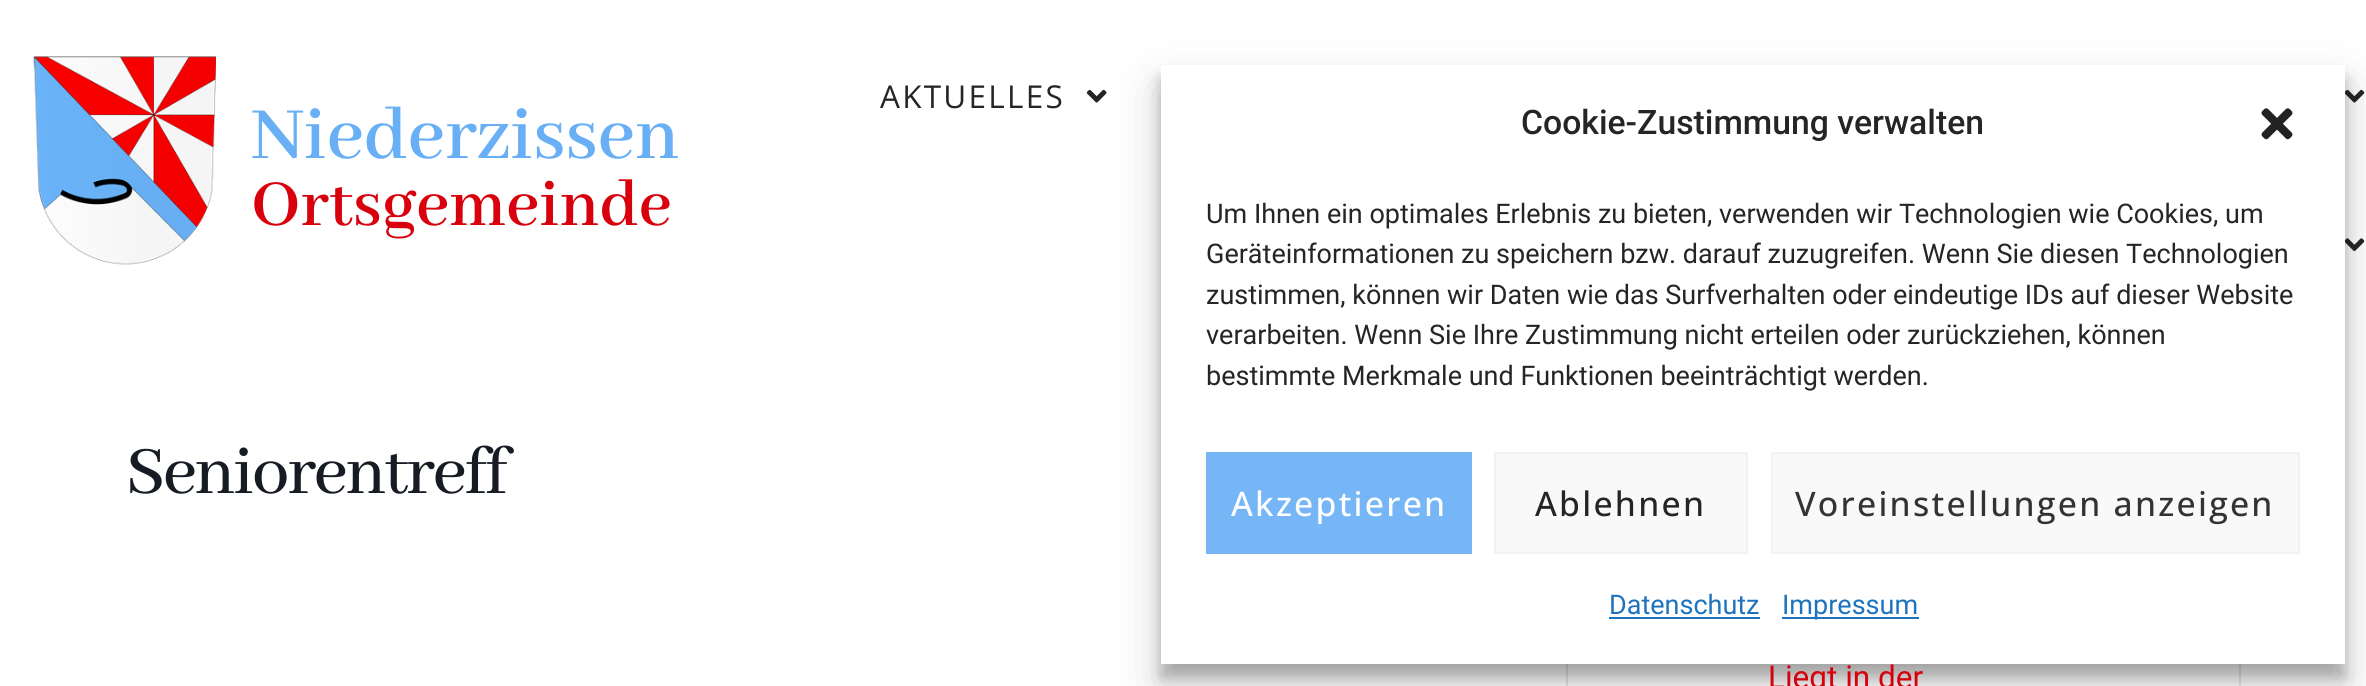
import math
import cairo

surface = cairo.ImageSurface(cairo.FORMAT_RGB24, 2366, 686)
cr = cairo.Context(surface)
options = cairo.FontOptions()
options.set_hint_metrics(cairo.HINT_METRICS_OFF)
options.set_hint_style(cairo.HINT_STYLE_NONE)
cr.set_font_options(options)
cr.set_miter_limit(4)


def rgb(code):
    cr.set_source_rgb(*(v / 255 for v in bytes.fromhex(code[-6:])))


def tracked(x, y, s, letter, word):
    cr.move_to(x, y)
    for ch in s:
        cr.show_text(ch)
        cr.rel_move_to(letter + word * (ch == ' '), 0)


def rrect(x, y, w, h, r):
    cr.new_sub_path()
    for i, (u, v) in enumerate([(x + w - r, y + h - r), (x + r, y + h - r), (x + r, y + r), (x + w - r, y + r)]):
        cr.arc(u, v, r, i * math.pi / 2, (i + 1) * math.pi / 2)
    cr.close_path()


def soft_shadow(x, y, w, h, r, blur, alpha):
    cr.push_group_with_content(cairo.CONTENT_ALPHA)
    cr.set_operator(cairo.OPERATOR_SOURCE)
    for i in range(15, -16, -2):
        e = blur * i / 6
        if min(w, h) + 2 * e > 0:
            cr.set_source_rgba(0, 0, 0, alpha * math.erfc((i - 1) / 8.5) / 2)
            rrect(x - e, y - e, w + 2 * e, h + 2 * e, max(0, min(r + e + blur * .6, min(w, h) / 2 + e)))
            cr.fill()
    cr.mask(cr.pop_group())


def image(path, x, y, w, h):
    cr.save()
    cr.set_source_surface(cairo.ImageSurface.create_from_png(path), x, y)
    cr.rectangle(x, y, w, h)
    cr.fill()
    cr.restore()


rgb("#ffffff")
cr.paint()
image("img/1.png", 1086, 89, 21, 14)
image("img/2.png", 2345, 89, 20, 14)
image("img/3.png", 2345, 238, 20, 13)
image("img/4.png", 33, 56, 183, 209)
cr.rectangle(1567, 433, 673, 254)
rgb("#e6e7e8")
cr.stroke()
rgb("#000000")
soft_shadow(1161, 79, 1184, 598, 0, 7, 0.23)
soft_shadow(1161, 88, 1184, 598, 0, 22.5, 0.19)
rgb("#ffffff")
cr.rectangle(1161, 65, 1184, 599)
cr.fill()
image("img/5.png", 2261, 108, 32, 32)
rgb("#77b6f6")
cr.rectangle(1206, 452, 266, 102)
cr.fill()
rgb("#f9f9f9")
cr.rectangle(1495, 453, 252, 100)
cr.fill_preserve()
rgb("#f2f2f2")
cr.stroke()
rgb("#f9f9f9")
cr.rectangle(1772, 453, 527, 100)
cr.fill_preserve()
rgb("#f2f2f2")
cr.stroke()
rgb("#1e73be")
cr.rectangle(1609, 617, 151, 2)
cr.fill()
cr.rectangle(1782, 617, 137, 2)
cr.fill()
cr.select_font_face("Open Sans")
cr.set_font_size(31.5)
rgb("#252525")
tracked(880, 108, "AKTUELLES", 2.25, 0)
cr.select_font_face("Abhaya Libre SemiBold SemiBold")
cr.set_font_size(81)
rgb("#69aff5")
cr.move_to(251, 158)
cr.show_text("Niederzissen")
cr.set_font_size(72)
rgb("#d8000c")
cr.move_to(251, 225)
cr.show_text("Ortsgemeinde")
cr.select_font_face("Abhaya Libre Medium Medium")
cr.set_font_size(74.25)
rgb("#171c24")
tracked(126, 493, "Seniorentreff", -2.25, 0)
cr.select_font_face("Roboto")
cr.set_font_size(31.5)
rgb("#d8000c")
cr.move_to(1768, 688)
cr.show_text("Liegt in der")
cr.select_font_face("Roboto Medium")
cr.set_font_size(33.75)
rgb("#252525")
cr.move_to(1521, 134)
cr.show_text("Cookie-Zustimmung verwalten")
cr.select_font_face("Roboto")
cr.set_font_size(27)
for x, y, s in [
    (1206, 223, "Um Ihnen ein optimales Erlebnis zu bieten, verwenden wir Technologien wie Cookies, um"),
    (1206, 263, "Geräteinformationen zu speichern bzw. darauf zuzugreifen. Wenn Sie diesen Technologien"),
    (1206, 304, "zustimmen, können wir Daten wie das Surfverhalten oder eindeutige IDs auf dieser Website"),
    (1206, 344, "verarbeiten. Wenn Sie Ihre Zustimmung nicht erteilen oder zurückziehen, können"),
    (1206, 385, "bestimmte Merkmale und Funktionen beeinträchtigt werden."),
]:
    cr.move_to(x, y)
    cr.show_text(s)
cr.select_font_face("Open Sans Medium")
cr.set_font_size(33.75)
rgb("#ffffff")
tracked(1231, 516, "Akzeptieren", 2.25, 0)
rgb("#252525")
tracked(1535, 516, "Ablehnen", 2.25, 0)
rgb("#333333")
tracked(1795, 516, "Voreinstellungen anzeigen", 2.25, 0)
cr.select_font_face("Roboto")
cr.set_font_size(27)
rgb("#1e73be")
cr.move_to(1609, 614)
cr.show_text("Datenschutz")
cr.move_to(1782, 614)
cr.show_text("Impressum")
surface.write_to_png("page.png")
